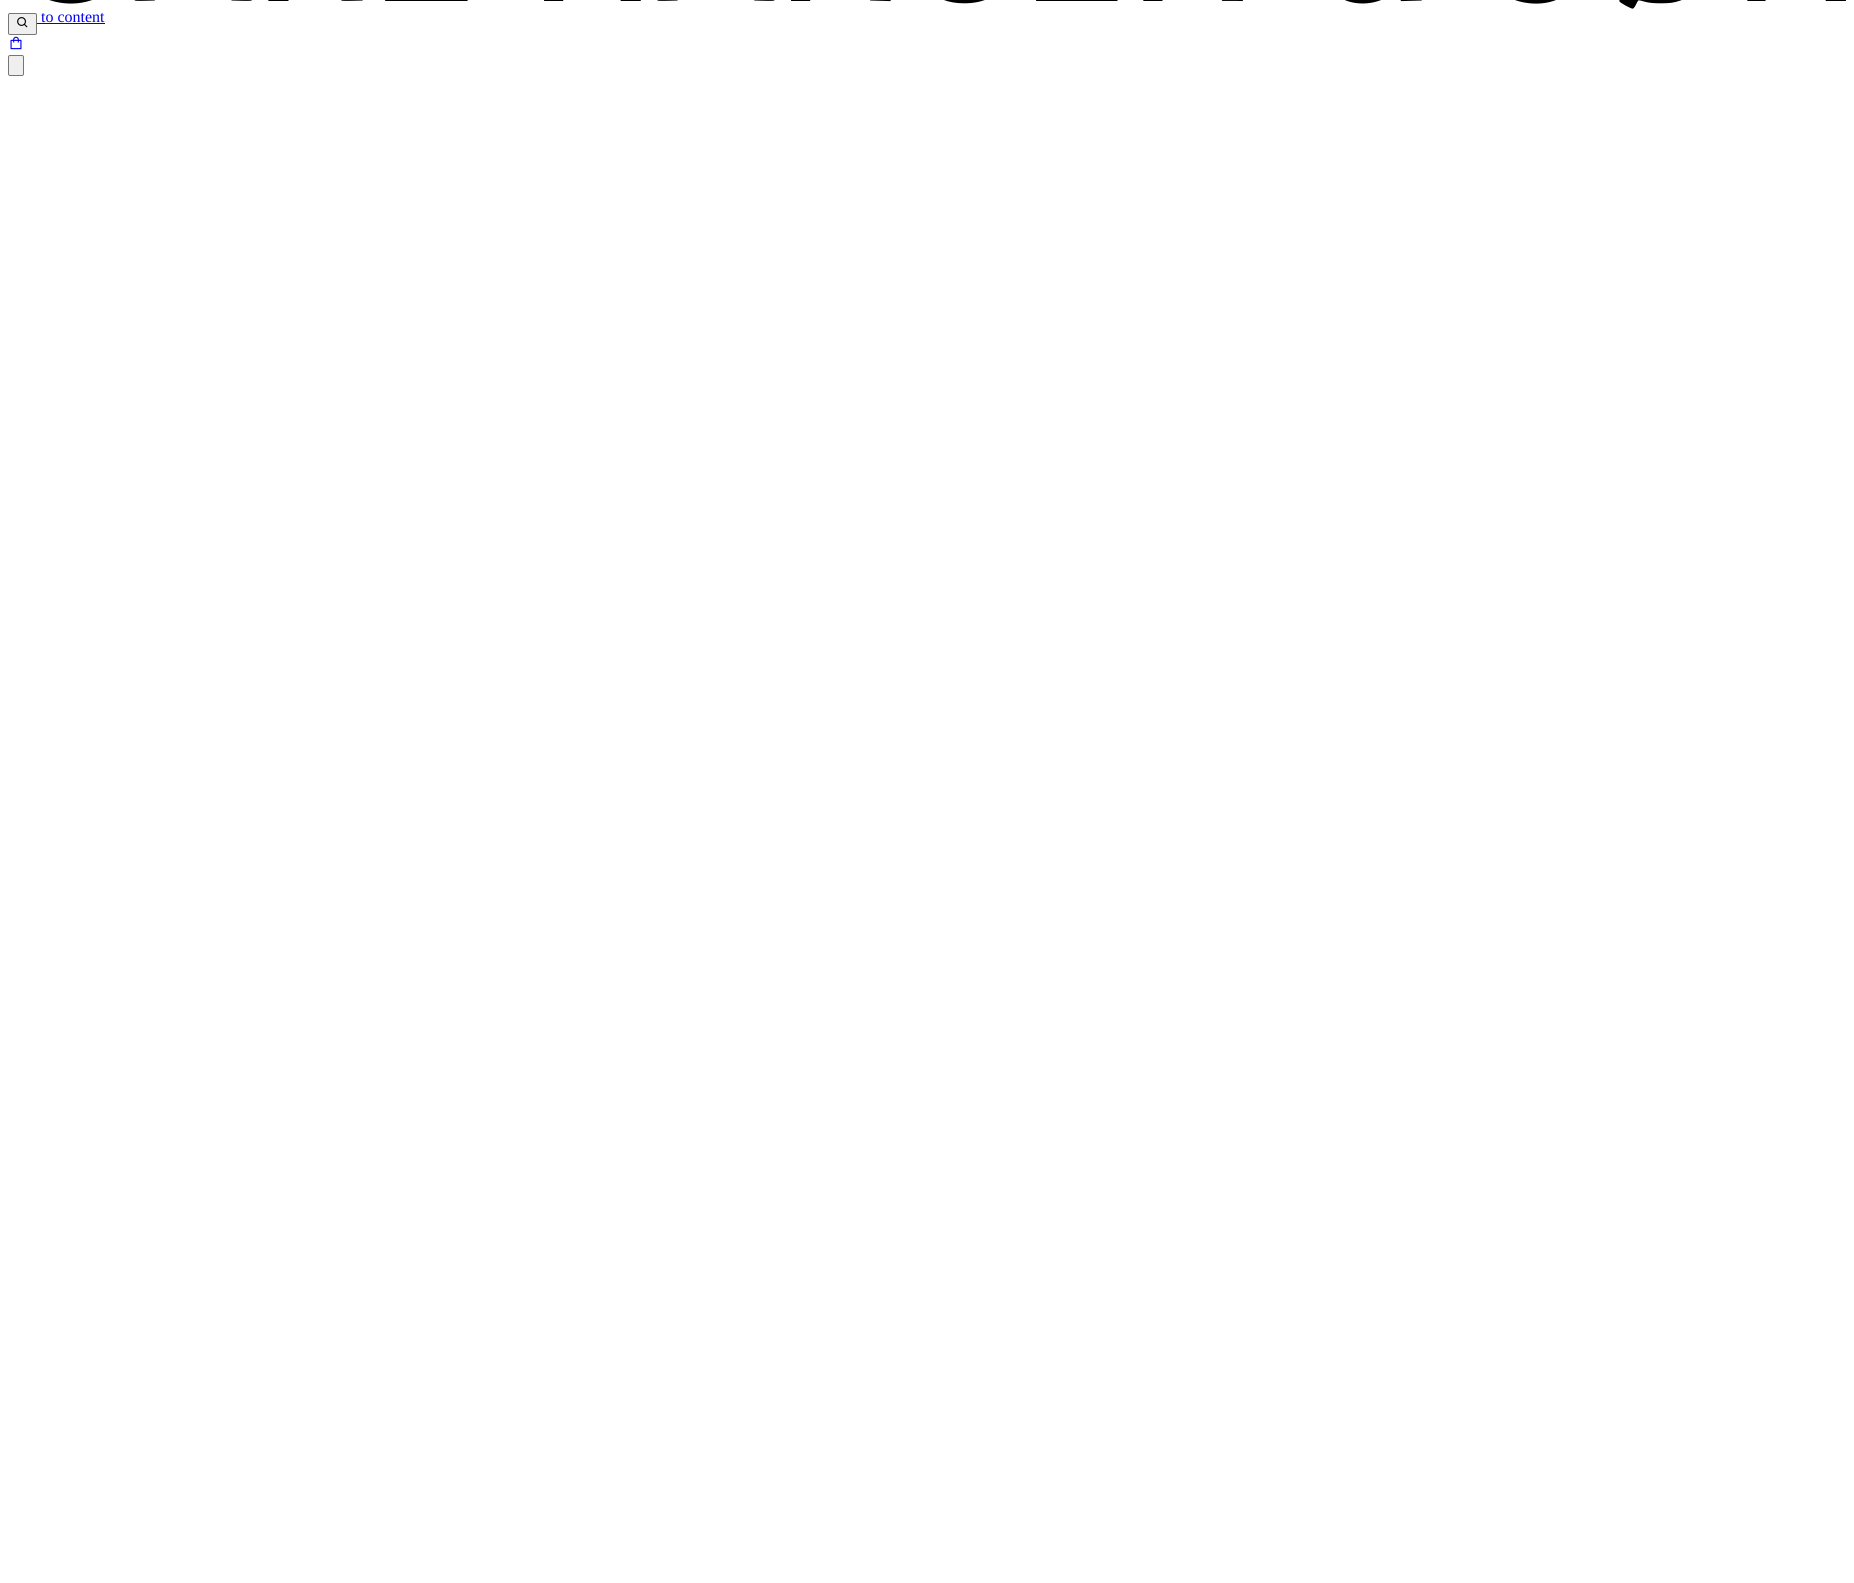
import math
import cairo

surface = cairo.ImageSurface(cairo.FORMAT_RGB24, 1854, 1583)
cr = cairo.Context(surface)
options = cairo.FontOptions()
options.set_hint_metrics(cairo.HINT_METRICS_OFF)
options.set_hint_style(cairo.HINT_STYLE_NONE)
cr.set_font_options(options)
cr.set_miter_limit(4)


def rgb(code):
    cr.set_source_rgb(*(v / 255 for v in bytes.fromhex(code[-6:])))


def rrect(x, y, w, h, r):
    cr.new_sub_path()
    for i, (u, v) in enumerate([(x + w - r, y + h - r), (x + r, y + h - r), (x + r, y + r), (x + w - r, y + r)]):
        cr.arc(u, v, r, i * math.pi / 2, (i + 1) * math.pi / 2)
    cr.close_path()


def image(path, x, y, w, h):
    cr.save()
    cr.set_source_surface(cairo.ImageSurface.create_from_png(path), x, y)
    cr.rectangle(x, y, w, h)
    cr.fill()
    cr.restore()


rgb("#ffffff")
cr.paint()
image("img/1.png", 49, 0, 1797, 9)
rgb("#efefef")
rrect(8.5, 13.5, 28, 21, 1.5)
cr.fill_preserve()
rgb("#767676")
cr.set_line_width(1)
cr.stroke()
image("img/2.png", 17, 17, 11, 11)
image("img/3.png", 10, 36, 12, 14)
rgb("#efefef")
rrect(8.5, 55.5, 15, 20, 1.5)
cr.fill_preserve()
rgb("#767676")
cr.stroke()
rgb("#0000ee")
cr.rectangle(37, 23, 68, 1)
cr.fill()
cr.select_font_face("Liberation Serif")
cr.set_font_size(16)
cr.move_to(41, 22)
cr.show_text("to content")
surface.write_to_png("page.png")
